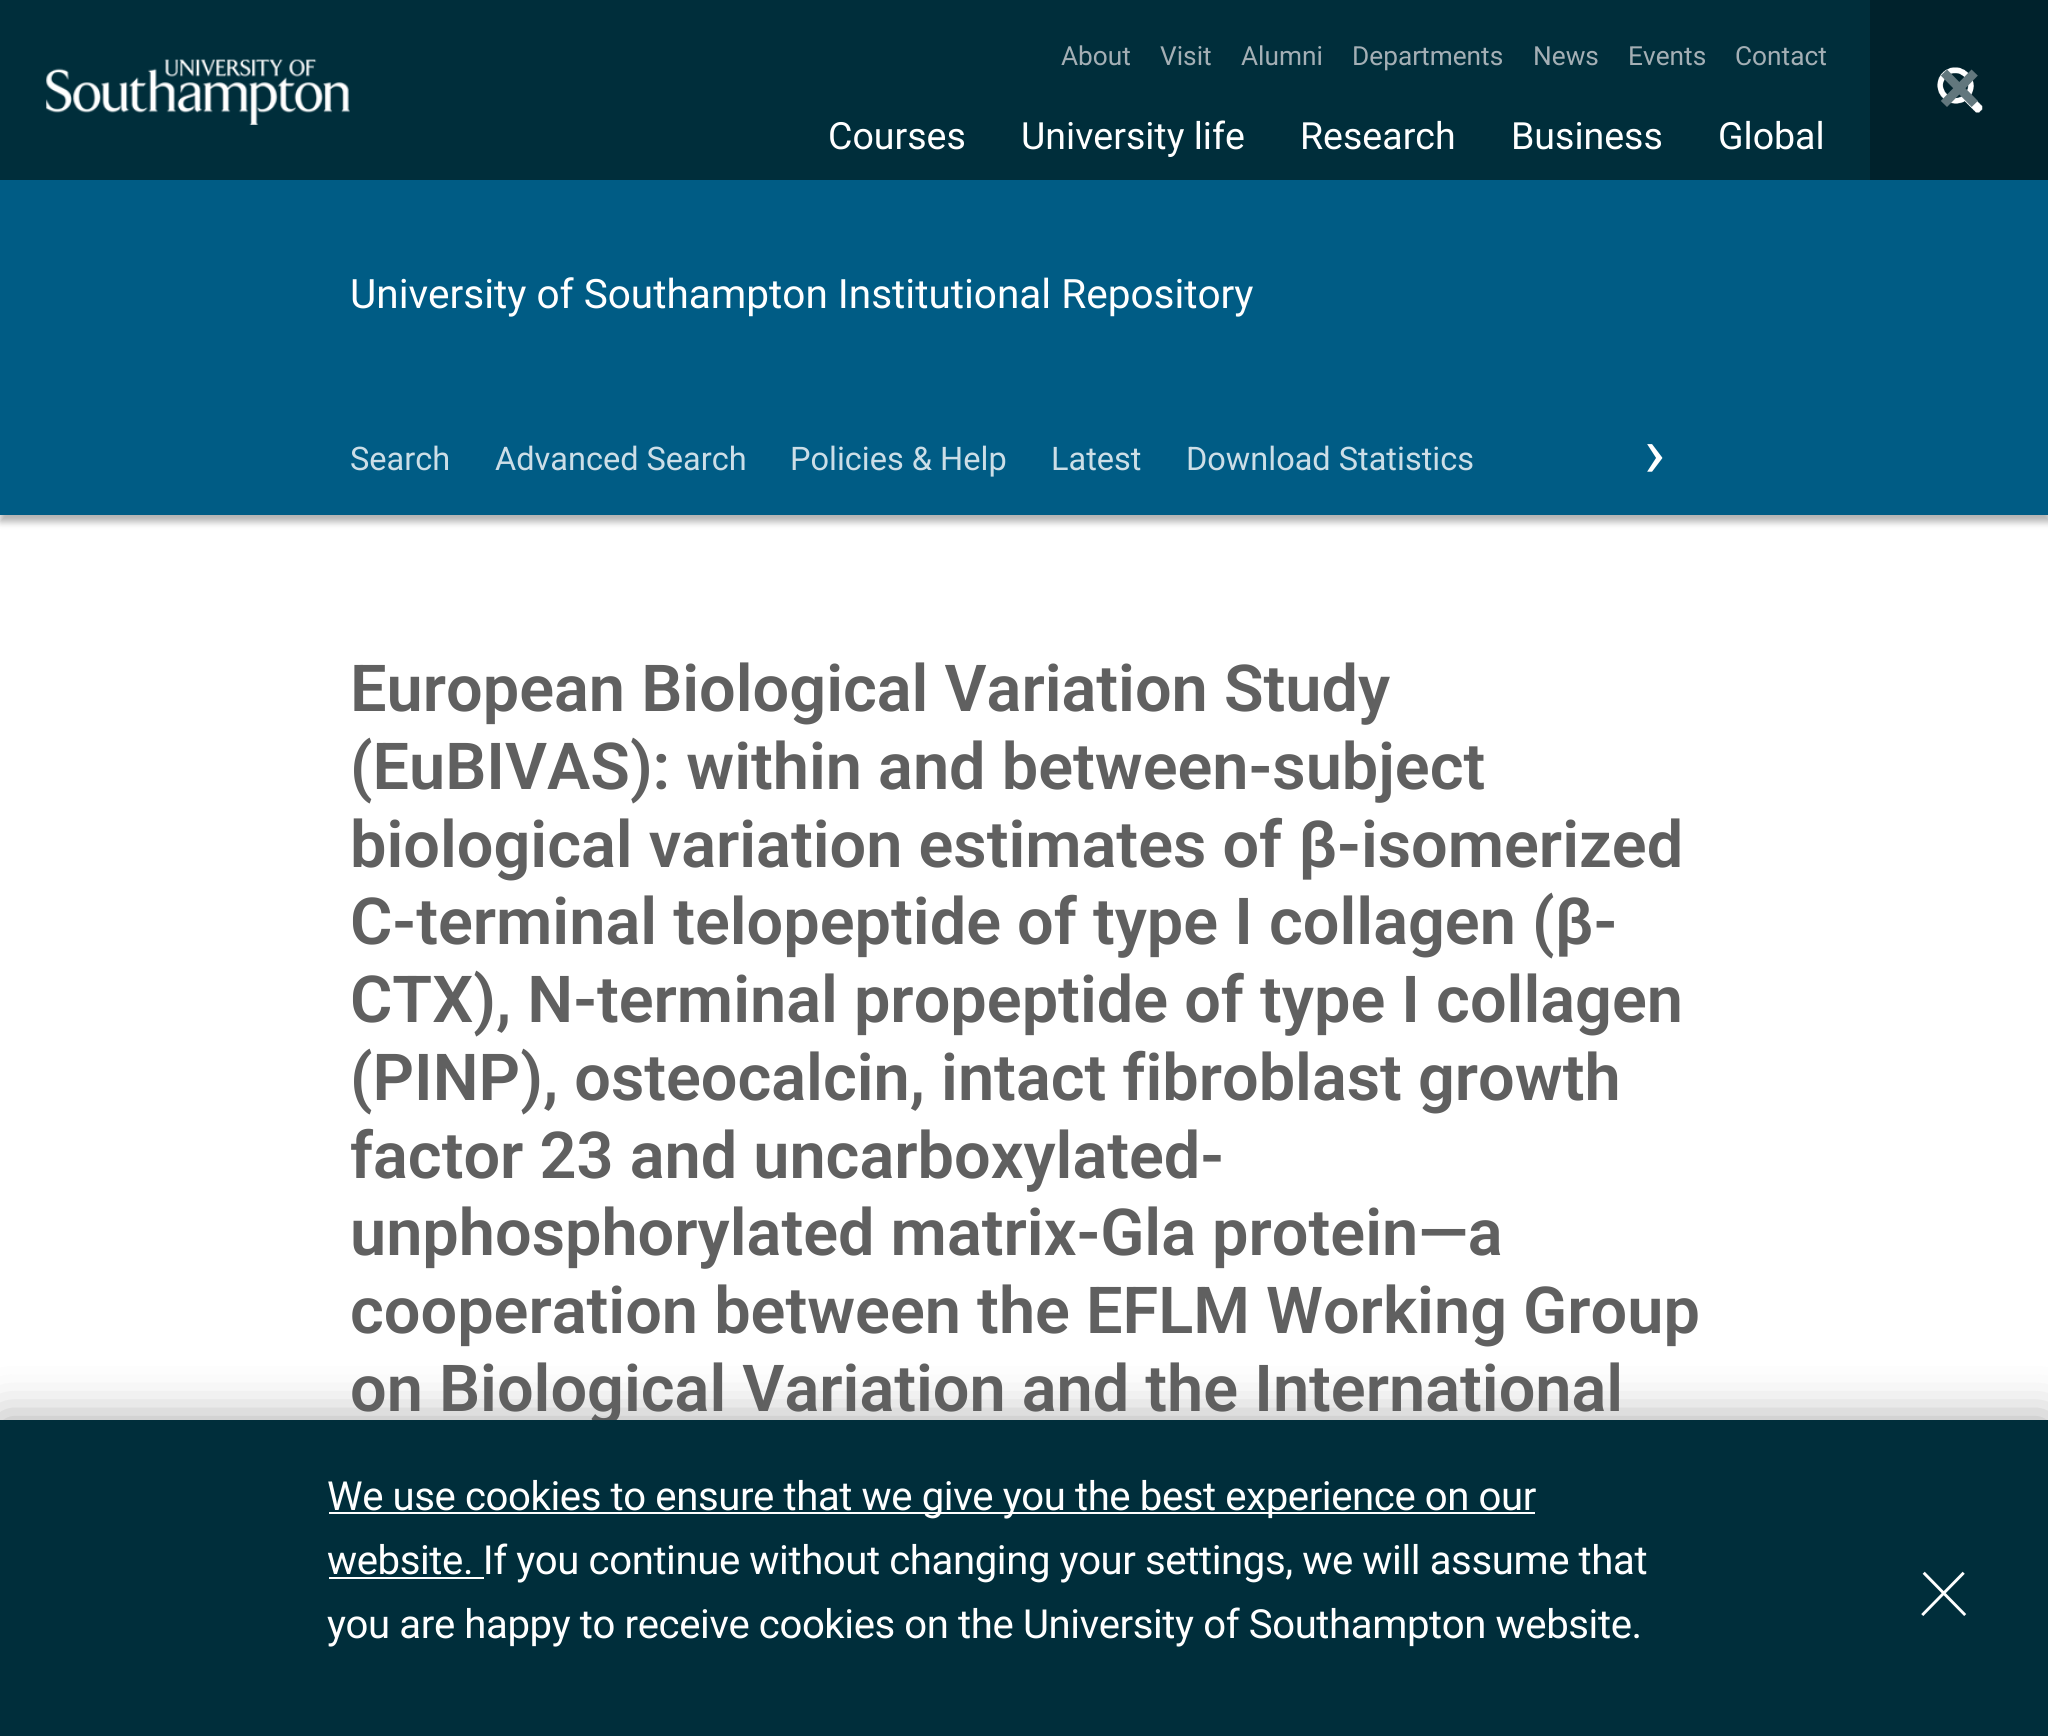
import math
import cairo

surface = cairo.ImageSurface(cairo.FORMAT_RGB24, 2048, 1736)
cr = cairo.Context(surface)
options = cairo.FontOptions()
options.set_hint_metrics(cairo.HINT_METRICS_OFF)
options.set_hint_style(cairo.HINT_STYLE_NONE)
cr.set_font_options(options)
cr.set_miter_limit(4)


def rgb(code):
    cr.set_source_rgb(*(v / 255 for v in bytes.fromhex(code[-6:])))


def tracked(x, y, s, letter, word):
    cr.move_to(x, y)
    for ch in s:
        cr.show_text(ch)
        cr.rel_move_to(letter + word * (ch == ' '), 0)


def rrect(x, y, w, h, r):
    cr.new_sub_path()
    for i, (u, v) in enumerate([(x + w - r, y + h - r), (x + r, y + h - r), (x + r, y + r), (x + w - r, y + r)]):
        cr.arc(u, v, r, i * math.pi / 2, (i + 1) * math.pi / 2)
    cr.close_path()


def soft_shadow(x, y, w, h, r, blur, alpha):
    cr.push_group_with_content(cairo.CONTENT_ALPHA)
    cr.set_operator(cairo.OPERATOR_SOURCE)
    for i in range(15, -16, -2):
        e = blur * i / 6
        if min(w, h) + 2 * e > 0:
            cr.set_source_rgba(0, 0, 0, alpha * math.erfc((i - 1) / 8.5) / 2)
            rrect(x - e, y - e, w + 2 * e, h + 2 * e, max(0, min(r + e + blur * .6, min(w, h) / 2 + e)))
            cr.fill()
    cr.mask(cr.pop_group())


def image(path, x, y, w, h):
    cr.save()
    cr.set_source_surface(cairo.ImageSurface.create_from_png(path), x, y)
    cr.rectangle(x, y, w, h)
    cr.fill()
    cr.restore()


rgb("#ffffff")
cr.paint()
rgb("#002e3b")
cr.rectangle(0, 0, 1870, 180)
cr.fill()
image("img/1.png", 46, 59, 304, 66)
rgb("#00222c")
cr.rectangle(1870, 0, 178, 180)
cr.fill()
image("img/2.png", 1937, 67, 46, 46)
rgb("#005c85")
cr.rectangle(0, 180, 2048, 227)
cr.fill()
rgb("#000000")
soft_shadow(0, 414, 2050, 108, 0, 3.5, 0.3)
rgb("#005c85")
cr.rectangle(0, 407, 2048, 108)
cr.fill()
rgb("#000000")
soft_shadow(0, 1420, 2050, 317, 0, 25, 0.35)
cr.select_font_face("Roboto")
cr.set_font_size(26.25)
rgb("#a4afb5")
for x, y, s in [
    (1061, 65, "About"),
    (1160, 65, "Visit"),
    (1241, 65, "Alumni"),
    (1352, 65, "Departments"),
    (1533, 65, "News"),
    (1628, 65, "Events"),
    (1735, 65, "Contact"),
]:
    cr.move_to(x, y)
    cr.show_text(s)
cr.set_font_size(37.5)
rgb("#ffffff")
for x, y, s in [
    (828, 149, "Courses"),
    (1021, 149, "University life"),
    (1300, 149, "Research"),
    (1511, 149, "Business"),
    (1718, 149, "Global"),
]:
    cr.move_to(x, y)
    cr.show_text(s)
cr.select_font_face("Roboto SemiBold")
cr.set_font_size(81)
rgb("#62777d")
cr.move_to(1938, 115)
cr.show_text("×")
cr.select_font_face("Roboto")
cr.set_font_size(40.5)
rgb("#ffffff")
cr.move_to(350, 308)
cr.show_text("University of Southampton Institutional Repository")
cr.set_font_size(32.5)
rgb("#ccdee7")
for x, y, s in [
    (350, 470, "Search"),
    (495, 470, "Advanced Search"),
    (790, 470, "Policies & Help"),
    (1051, 470, "Latest"),
    (1186, 470, "Download Statistics"),
]:
    cr.move_to(x, y)
    cr.show_text(s)
cr.set_font_size(71)
rgb("#ffffff")
cr.move_to(1644, 477)
cr.show_text("›")
cr.select_font_face("Roboto SemiBold")
cr.set_font_size(64.8)
rgb("#606060")
for x, y, s in [
    (350, 711, "European Biological Variation Study"),
    (350, 789, "(EuBIVAS): within and between-subject"),
    (350, 867, "biological variation estimates of β-isomerized"),
    (350, 944, "C-terminal telopeptide of type I collagen (β-"),
    (350, 1022, "CTX), N-terminal propeptide of type I collagen"),
    (350, 1100, "(PINP), osteocalcin, intact fibroblast growth"),
    (350, 1178, "factor 23 and uncarboxylated-"),
    (350, 1255, "unphosphorylated matrix-Gla protein—a"),
    (350, 1333, "cooperation between the EFLM Working Group"),
    (350, 1411, "on Biological Variation and the International"),
]:
    cr.move_to(x, y)
    cr.show_text(s)
rgb("#002e3b")
cr.rectangle(0, 1420, 2048, 316)
cr.fill()
rgb("#ffffff")
cr.rectangle(329, 1512, 1206, 2)
cr.fill()
cr.select_font_face("Roboto")
cr.set_font_size(40.1)
tracked(327, 1510, "We use cookies to ensure that we give you the best experience on our", -0.4, 0)
cr.rectangle(329, 1577, 155, 2)
cr.fill()
tracked(327, 1574, "website. If you continue without changing your settings, we will assume that", -0.4, 0)
tracked(327, 1638, "you are happy to receive cookies on the University of Southampton website.", -0.4, 0)
cr.select_font_face("Roboto Thin")
cr.set_font_size(109)
cr.move_to(1916, 1616)
cr.show_text("×")
surface.write_to_png("page.png")
